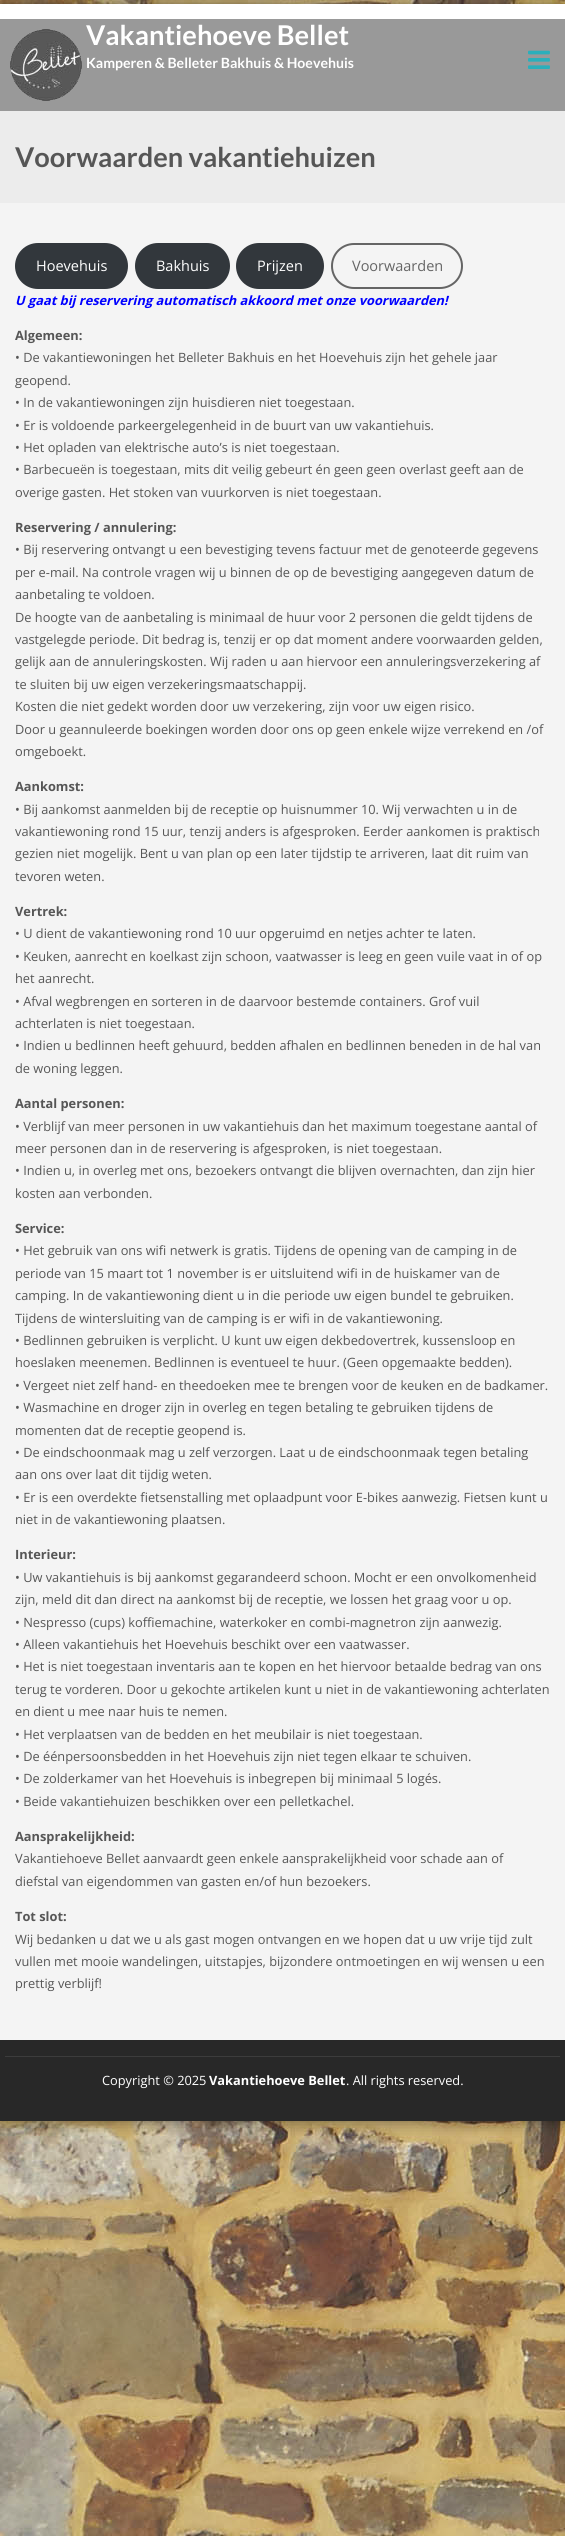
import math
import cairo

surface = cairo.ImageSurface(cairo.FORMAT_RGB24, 565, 2536)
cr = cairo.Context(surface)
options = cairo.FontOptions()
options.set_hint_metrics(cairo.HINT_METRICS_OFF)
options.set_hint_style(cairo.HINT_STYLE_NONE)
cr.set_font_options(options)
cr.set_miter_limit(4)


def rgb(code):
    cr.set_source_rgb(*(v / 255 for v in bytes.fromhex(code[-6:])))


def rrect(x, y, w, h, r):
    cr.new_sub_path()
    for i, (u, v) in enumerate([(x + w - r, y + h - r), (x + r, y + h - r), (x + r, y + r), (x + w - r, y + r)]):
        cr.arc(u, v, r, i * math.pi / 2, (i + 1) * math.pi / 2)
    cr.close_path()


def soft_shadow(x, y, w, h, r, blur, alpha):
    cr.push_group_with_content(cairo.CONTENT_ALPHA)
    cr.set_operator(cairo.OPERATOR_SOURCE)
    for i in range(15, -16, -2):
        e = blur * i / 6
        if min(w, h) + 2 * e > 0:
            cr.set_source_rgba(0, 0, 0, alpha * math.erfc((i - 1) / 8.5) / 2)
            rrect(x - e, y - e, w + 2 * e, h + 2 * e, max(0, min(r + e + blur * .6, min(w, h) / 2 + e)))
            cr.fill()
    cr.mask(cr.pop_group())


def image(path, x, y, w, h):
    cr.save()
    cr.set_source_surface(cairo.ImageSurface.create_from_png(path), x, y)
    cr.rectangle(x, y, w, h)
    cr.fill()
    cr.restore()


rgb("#ffffff")
cr.paint()
image("img/1.png", 0, 0, 565, 2536)
rgb("#000000")
soft_shadow(0, 4, 565, 2117, 0, 9, 0.5)
rgb("#ffffff")
cr.rectangle(0, 4, 565, 15)
cr.fill()
rgb("#999999")
cr.rectangle(0, 19, 565, 92)
cr.fill()
image("img/2.png", 10, 29, 72, 72)
image("img/3.png", 528, 50, 22, 19)
rgb("#ececec")
cr.rectangle(0, 111, 565, 92)
cr.fill()
rgb("#f4f4f4")
cr.rectangle(0, 203, 565, 1837)
cr.fill()
rgb("#32373c")
rrect(15, 243, 113, 46, 23)
cr.fill()
rrect(135, 243, 95, 46, 23)
cr.fill()
rrect(236, 243, 88, 46, 23)
cr.fill()
rrect(332, 244, 130, 44, 22)
rgb("#656565")
cr.stroke()
rgb("#282828")
cr.rectangle(0, 2040, 565, 81)
cr.fill()
rgb("#3c3c3c")
cr.rectangle(5, 2056, 555, 1)
cr.fill()
cr.select_font_face("Lato", cairo.FONT_SLANT_NORMAL, cairo.FONT_WEIGHT_BOLD)
cr.set_font_size(27.25)
rgb("#ffffff")
cr.move_to(86, 45)
cr.show_text("Vakantiehoeve Bellet")
cr.set_font_size(14.1)
cr.move_to(86, 68)
cr.show_text("Kamperen & Belleter Bakhuis & Hoevehuis")
cr.set_font_size(27.25)
rgb("#565656")
cr.move_to(15, 167)
cr.show_text("Voorwaarden vakantiehuizen")
cr.select_font_face("Open Sans")
cr.set_font_size(14.5)
rgb("#ffffff")
for x, y, s in [
    (36, 271, "Hoevehuis"),
    (156, 271, "Bakhuis"),
    (257, 271, "Prijzen"),
]:
    cr.move_to(x, y)
    cr.show_text(s)
rgb("#656565")
cr.move_to(352, 271)
cr.show_text("Voorwaarden")
cr.select_font_face("Open Sans", cairo.FONT_SLANT_ITALIC, cairo.FONT_WEIGHT_BOLD)
cr.set_font_size(12.8)
rgb("#0000ff")
cr.move_to(15, 305)
cr.show_text("U gaat bij reservering automatisch akkoord met onze voorwaarden!")
cr.select_font_face("Open Sans", cairo.FONT_SLANT_NORMAL, cairo.FONT_WEIGHT_BOLD)
rgb("#565656")
cr.move_to(15, 340)
cr.show_text("Algemeen:")
cr.select_font_face("Open Sans")
for x, y, s in [
    (15, 362, "• De vakantiewoningen het Belleter Bakhuis en het Hoevehuis zijn het gehele jaar"),
    (15, 385, "geopend."),
    (15, 407, "• In de vakantiewoningen zijn huisdieren niet toegestaan."),
    (15, 430, "• Er is voldoende parkeergelegenheid in de buurt van uw vakantiehuis."),
    (15, 452, "• Het opladen van elektrische auto’s is niet toegestaan."),
    (15, 474, "• Barbecueën is toegestaan, mits dit veilig gebeurt én geen geen overlast geeft aan de"),
    (15, 497, "overige gasten. Het stoken van vuurkorven is niet toegestaan."),
]:
    cr.move_to(x, y)
    cr.show_text(s)
cr.select_font_face("Open Sans", cairo.FONT_SLANT_NORMAL, cairo.FONT_WEIGHT_BOLD)
cr.move_to(15, 532)
cr.show_text("Reservering / annulering:")
cr.select_font_face("Open Sans")
for x, y, s in [
    (15, 554, "• Bij reservering ontvangt u een bevestiging tevens factuur met de genoteerde gegevens"),
    (15, 577, "per e-mail. Na controle vragen wij u binnen de op de bevestiging aangegeven datum de"),
    (15, 599, "aanbetaling te voldoen."),
    (15, 622, "De hoogte van de aanbetaling is minimaal de huur voor 2 personen die geldt tijdens de"),
    (15, 644, "vastgelegde periode. Dit bedrag is, tenzij er op dat moment andere voorwaarden gelden,"),
    (15, 666, "gelijk aan de annuleringskosten. Wij raden u aan hiervoor een annuleringsverzekering af"),
    (15, 689, "te sluiten bij uw eigen verzekeringsmaatschappij."),
    (15, 711, "Kosten die niet gedekt worden door uw verzekering, zijn voor uw eigen risico."),
    (15, 734, "Door u geannuleerde boekingen worden door ons op geen enkele wijze verrekend en /of"),
    (15, 756, "omgeboekt."),
]:
    cr.move_to(x, y)
    cr.show_text(s)
cr.select_font_face("Open Sans", cairo.FONT_SLANT_NORMAL, cairo.FONT_WEIGHT_BOLD)
cr.move_to(15, 791)
cr.show_text("Aankomst:")
cr.select_font_face("Open Sans")
for x, y, s in [
    (15, 814, "• Bij aankomst aanmelden bij de receptie op huisnummer 10. Wij verwachten u in de"),
    (15, 836, "vakantiewoning rond 15 uur, tenzij anders is afgesproken. Eerder aankomen is praktisch"),
    (15, 858, "gezien niet mogelijk. Bent u van plan op een later tijdstip te arriveren, laat dit ruim van"),
    (15, 881, "tevoren weten."),
]:
    cr.move_to(x, y)
    cr.show_text(s)
cr.select_font_face("Open Sans", cairo.FONT_SLANT_NORMAL, cairo.FONT_WEIGHT_BOLD)
cr.move_to(15, 916)
cr.show_text("Vertrek:")
cr.select_font_face("Open Sans")
for x, y, s in [
    (15, 938, "• U dient de vakantiewoning rond 10 uur opgeruimd en netjes achter te laten."),
    (15, 961, "• Keuken, aanrecht en koelkast zijn schoon, vaatwasser is leeg en geen vuile vaat in of op"),
    (15, 983, "het aanrecht."),
    (15, 1006, "• Afval wegbrengen en sorteren in de daarvoor bestemde containers. Grof vuil"),
    (15, 1028, "achterlaten is niet toegestaan."),
    (15, 1050, "• Indien u bedlinnen heeft gehuurd, bedden afhalen en bedlinnen beneden in de hal van"),
    (15, 1073, "de woning leggen."),
]:
    cr.move_to(x, y)
    cr.show_text(s)
cr.select_font_face("Open Sans", cairo.FONT_SLANT_NORMAL, cairo.FONT_WEIGHT_BOLD)
cr.move_to(15, 1108)
cr.show_text("Aantal personen:")
cr.select_font_face("Open Sans")
for x, y, s in [
    (15, 1131, "• Verblijf van meer personen in uw vakantiehuis dan het maximum toegestane aantal of"),
    (15, 1153, "meer personen dan in de reservering is afgesproken, is niet toegestaan."),
    (15, 1175, "• Indien u, in overleg met ons, bezoekers ontvangt die blijven overnachten, dan zijn hier"),
    (15, 1198, "kosten aan verbonden."),
]:
    cr.move_to(x, y)
    cr.show_text(s)
cr.select_font_face("Open Sans", cairo.FONT_SLANT_NORMAL, cairo.FONT_WEIGHT_BOLD)
cr.move_to(15, 1233)
cr.show_text("Service:")
cr.select_font_face("Open Sans")
for x, y, s in [
    (15, 1255, "• Het gebruik van ons wifi netwerk is gratis. Tijdens de opening van de camping in de"),
    (15, 1278, "periode van 15 maart tot 1 november is er uitsluitend wifi in de huiskamer van de"),
    (15, 1300, "camping. In de vakantiewoning dient u in die periode uw eigen bundel te gebruiken."),
    (15, 1323, "Tijdens de wintersluiting van de camping is er wifi in de vakantiewoning."),
    (15, 1345, "• Bedlinnen gebruiken is verplicht. U kunt uw eigen dekbedovertrek, kussensloop en"),
    (15, 1367, "hoeslaken meenemen. Bedlinnen is eventueel te huur. (Geen opgemaakte bedden)."),
    (15, 1390, "• Vergeet niet zelf hand- en theedoeken mee te brengen voor de keuken en de badkamer."),
    (15, 1412, "• Wasmachine en droger zijn in overleg en tegen betaling te gebruiken tijdens de"),
    (15, 1435, "momenten dat de receptie geopend is."),
    (15, 1457, "• De eindschoonmaak mag u zelf verzorgen. Laat u de eindschoonmaak tegen betaling"),
    (15, 1479, "aan ons over laat dit tijdig weten."),
    (15, 1502, "• Er is een overdekte fietsenstalling met oplaadpunt voor E-bikes aanwezig. Fietsen kunt u"),
    (15, 1524, "niet in de vakantiewoning plaatsen."),
]:
    cr.move_to(x, y)
    cr.show_text(s)
cr.select_font_face("Open Sans", cairo.FONT_SLANT_NORMAL, cairo.FONT_WEIGHT_BOLD)
cr.move_to(15, 1559)
cr.show_text("Interieur:")
cr.select_font_face("Open Sans")
for x, y, s in [
    (15, 1582, "• Uw vakantiehuis is bij aankomst gegarandeerd schoon. Mocht er een onvolkomenheid"),
    (15, 1604, "zijn, meld dit dan direct na aankomst bij de receptie, we lossen het graag voor u op."),
    (15, 1627, "• Nespresso (cups) koffiemachine, waterkoker en combi-magnetron zijn aanwezig."),
    (15, 1649, "• Alleen vakantiehuis het Hoevehuis beschikt over een vaatwasser."),
    (15, 1671, "• Het is niet toegestaan inventaris aan te kopen en het hiervoor betaalde bedrag van ons"),
    (15, 1694, "terug te vorderen. Door u gekochte artikelen kunt u niet in de vakantiewoning achterlaten"),
    (15, 1716, "en dient u mee naar huis te nemen."),
    (15, 1739, "• Het verplaatsen van de bedden en het meubilair is niet toegestaan."),
    (15, 1761, "• De éénpersoonsbedden in het Hoevehuis zijn niet tegen elkaar te schuiven."),
    (15, 1783, "• De zolderkamer van het Hoevehuis is inbegrepen bij minimaal 5 logés."),
    (15, 1806, "• Beide vakantiehuizen beschikken over een pelletkachel."),
]:
    cr.move_to(x, y)
    cr.show_text(s)
cr.select_font_face("Open Sans", cairo.FONT_SLANT_NORMAL, cairo.FONT_WEIGHT_BOLD)
cr.move_to(15, 1841)
cr.show_text("Aansprakelijkheid:")
cr.select_font_face("Open Sans")
cr.move_to(15, 1863)
cr.show_text("Vakantiehoeve Bellet aanvaardt geen enkele aansprakelijkheid voor schade aan of")
cr.move_to(15, 1886)
cr.show_text("diefstal van eigendommen van gasten en/of hun bezoekers.")
cr.select_font_face("Open Sans", cairo.FONT_SLANT_NORMAL, cairo.FONT_WEIGHT_BOLD)
cr.move_to(15, 1921)
cr.show_text("Tot slot:")
cr.select_font_face("Open Sans")
for x, y, s in [
    (15, 1944, "Wij bedanken u dat we u als gast mogen ontvangen en we hopen dat u uw vrije tijd zult"),
    (15, 1966, "vullen met mooie wandelingen, uitstapjes, bijzondere ontmoetingen en wij wensen u een"),
    (15, 1988, "prettig verblijf!"),
]:
    cr.move_to(x, y)
    cr.show_text(s)
rgb("#ffffff")
cr.move_to(102, 2085)
cr.show_text("Copyright © 2025")
cr.select_font_face("Open Sans", cairo.FONT_SLANT_NORMAL, cairo.FONT_WEIGHT_BOLD)
cr.move_to(209, 2085)
cr.show_text("Vakantiehoeve Bellet")
cr.select_font_face("Open Sans")
cr.move_to(346, 2085)
cr.show_text(". All rights reserved.")
surface.write_to_png("page.png")
